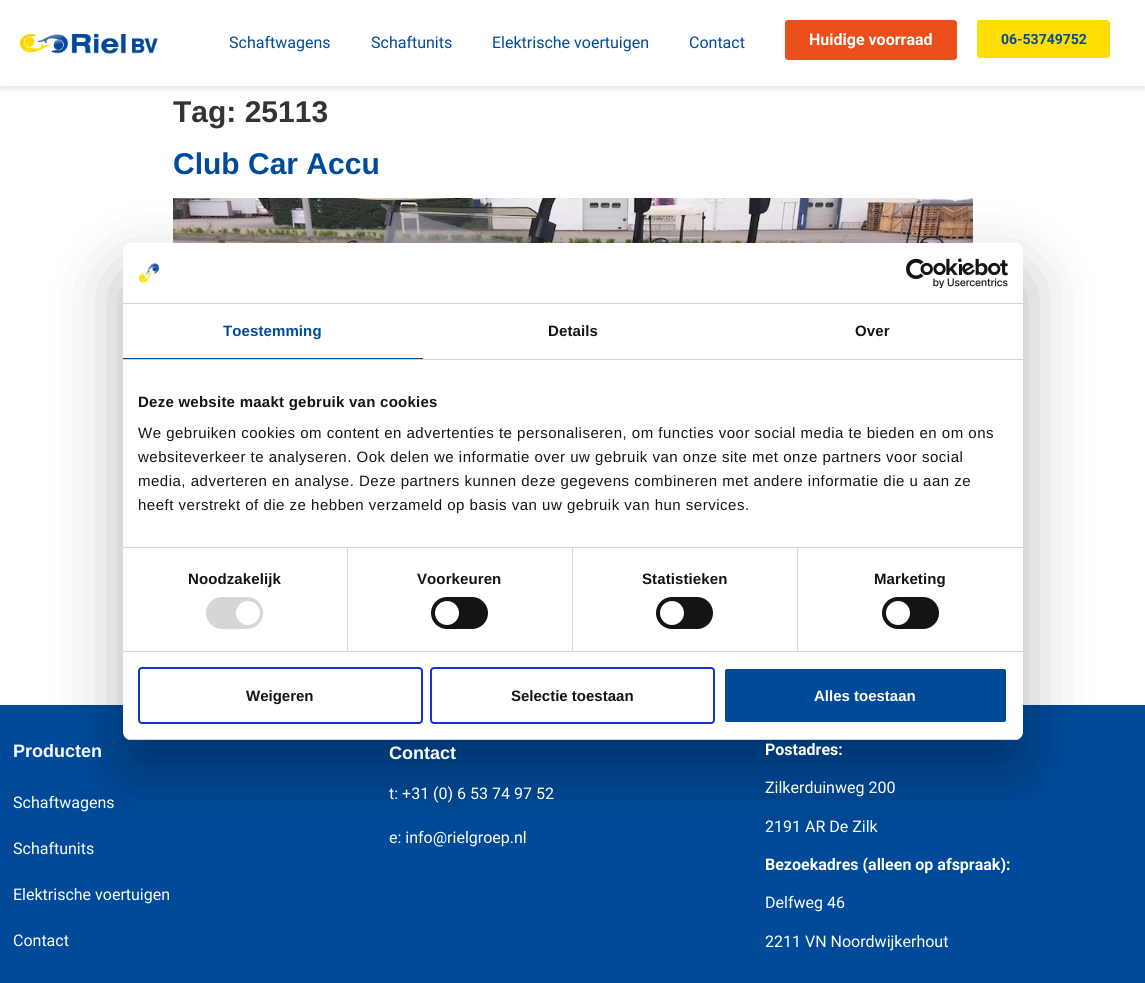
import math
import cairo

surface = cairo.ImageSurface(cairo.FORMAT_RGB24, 1145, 983)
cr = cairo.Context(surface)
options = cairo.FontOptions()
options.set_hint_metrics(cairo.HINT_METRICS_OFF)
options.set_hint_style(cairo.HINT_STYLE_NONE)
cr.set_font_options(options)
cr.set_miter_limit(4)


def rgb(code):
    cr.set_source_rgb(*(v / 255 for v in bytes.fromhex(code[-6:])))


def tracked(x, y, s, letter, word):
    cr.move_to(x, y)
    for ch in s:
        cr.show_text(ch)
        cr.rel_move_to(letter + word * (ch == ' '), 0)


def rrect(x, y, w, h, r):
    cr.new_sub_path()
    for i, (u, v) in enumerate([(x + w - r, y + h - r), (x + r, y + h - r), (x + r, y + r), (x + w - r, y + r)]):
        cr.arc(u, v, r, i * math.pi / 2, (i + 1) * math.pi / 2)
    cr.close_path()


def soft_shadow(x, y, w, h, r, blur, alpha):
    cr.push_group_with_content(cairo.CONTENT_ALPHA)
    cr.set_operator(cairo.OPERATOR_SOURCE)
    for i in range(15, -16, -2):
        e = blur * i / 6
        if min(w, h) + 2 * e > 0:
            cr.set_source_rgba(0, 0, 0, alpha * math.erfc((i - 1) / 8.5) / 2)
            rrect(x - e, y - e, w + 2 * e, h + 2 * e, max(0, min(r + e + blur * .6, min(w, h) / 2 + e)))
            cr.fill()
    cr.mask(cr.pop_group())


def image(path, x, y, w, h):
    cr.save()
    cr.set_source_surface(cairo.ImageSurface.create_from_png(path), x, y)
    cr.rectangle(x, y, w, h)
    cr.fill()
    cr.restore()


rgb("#ffffff")
cr.paint()
cr.save()
cr.rectangle(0, 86, 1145, 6)
cr.clip()
rgb("#000000")
soft_shadow(0, 0, 1145, 86, 0, 5, 0.19)
cr.restore()
image("img/1.png", 20, 34, 138, 20)
rgb("#e94e1b")
rrect(785, 20, 172, 40, 3)
cr.fill()
rgb("#fedd02")
rrect(977, 20, 133, 38, 3)
cr.fill()
image("img/2.png", 173, 198, 800, 45)
rgb("#004a99")
cr.rectangle(0, 705, 1145, 278)
cr.fill()
rgb("#000000")
soft_shadow(123, 275, 900, 497, 8, 34, 0.3)
rgb("#ffffff")
rrect(123, 243, 900, 497, 8)
cr.fill()
rgb("#d6d6d6")
cr.rectangle(123, 303, 900, 1)
cr.fill()
image("img/3.png", 138, 263, 21, 21)
image("img/4.png", 906, 258, 102, 30)
for x, y, w, h, color in [
    (123, 359, 900, 1, "#d6d6d6"),
    (123, 358, 300, 1, "#004a99"),
    (123, 547, 900, 1, "#d6d6d6"),
    (123, 651, 900, 1, "#d6d6d6"),
    (347, 548, 1, 103, "#d6d6d6"),
]:
    rgb(color)
    cr.rectangle(x, y, w, h)
    cr.fill()
rrect(206, 597, 57, 32, 16)
cr.fill()
rgb("#ffffff")
cr.arc(248, 613, 12, 0, 2 * math.pi)
cr.fill()
rgb("#d6d6d6")
cr.rectangle(572, 548, 1, 103)
cr.fill()
rgb("#141414")
rrect(431, 597, 57, 32, 16)
cr.fill()
rgb("#ffffff")
cr.arc(447, 613, 12, 0, 2 * math.pi)
cr.fill()
rgb("#d6d6d6")
cr.rectangle(797, 548, 1, 103)
cr.fill()
rgb("#141414")
rrect(656, 597, 57, 32, 16)
cr.fill()
rgb("#ffffff")
cr.arc(672, 613, 12, 0, 2 * math.pi)
cr.fill()
rgb("#141414")
rrect(882, 597, 57, 32, 16)
cr.fill()
rgb("#ffffff")
cr.arc(898, 613, 12, 0, 2 * math.pi)
cr.fill()
cr.save()
rrect(123, 243, 900, 497, 8)
cr.clip()
rgb("#d6d6d6")
cr.rectangle(123, 739, 900, 1)
cr.fill()
cr.restore()
rrect(139, 668, 283, 55, 3)
rgb("#1032cf")
cr.stroke()
rrect(431, 668, 283, 55, 3)
cr.stroke()
rgb("#004a99")
rrect(724, 668, 283, 55, 3)
cr.fill_preserve()
rgb("#ffffff")
cr.stroke()
cr.select_font_face("Roboto")
cr.set_font_size(16)
rgb("#004a99")
for x, y, s in [
    (229, 48, "Schaftwagens"),
    (371, 48, "Schaftunits"),
    (492, 48, "Elektrische voertuigen"),
    (689, 48, "Contact"),
]:
    cr.move_to(x, y)
    cr.show_text(s)
cr.select_font_face("Roboto", cairo.FONT_SLANT_NORMAL, cairo.FONT_WEIGHT_BOLD)
rgb("#ffffff")
cr.move_to(809, 45)
cr.show_text("Huidige voorraad")
cr.set_font_size(14)
rgb("#004a99")
cr.move_to(1001, 44)
cr.show_text("06-53749752")
cr.select_font_face("Liberation Sans", cairo.FONT_SLANT_NORMAL, cairo.FONT_WEIGHT_BOLD)
cr.set_font_size(30)
rgb("#333333")
cr.move_to(173, 122)
cr.show_text("Tag: 25113")
rgb("#004a99")
cr.move_to(173, 174)
cr.show_text("Club Car Accu")
cr.set_font_size(15)
tracked(223, 336, "Toestemming", 0.1, 0)
rgb("#141414")
tracked(548, 336, "Details", 0.1, 0)
tracked(855, 336, "Over", 0.1, 0)
tracked(138, 407, "Deze website maakt gebruik van cookies", 0.25, 0)
cr.select_font_face("Liberation Sans")
for x, y, s in [
    (138, 438, "We gebruiken cookies om content en advertenties te personaliseren, om functies voor social media te bieden en om ons"),
    (138, 462, "websiteverkeer te analyseren. Ook delen we informatie over uw gebruik van onze site met onze partners voor social"),
    (138, 486, "media, adverteren en analyse. Deze partners kunnen deze gegevens combineren met andere informatie die u aan ze"),
    (138, 510, "heeft verstrekt of die ze hebben verzameld op basis van uw gebruik van hun services."),
]:
    tracked(x, y, s, 0.5, 0)
cr.select_font_face("Liberation Sans", cairo.FONT_SLANT_NORMAL, cairo.FONT_WEIGHT_BOLD)
for x, y, s in [
    (188, 584, "Noodzakelijk"),
    (417, 584, "Voorkeuren"),
    (642, 584, "Statistieken"),
    (874, 584, "Marketing"),
]:
    tracked(x, y, s, 0.1, 0)
cr.move_to(246, 701)
cr.show_text("Weigeren")
cr.move_to(511, 701)
cr.show_text("Selectie toestaan")
rgb("#ffffff")
cr.move_to(814, 701)
cr.show_text("Alles toestaan")
cr.set_font_size(18)
cr.move_to(13, 757)
cr.show_text("Producten")
cr.select_font_face("Roboto")
cr.set_font_size(16)
for x, y, s in [
    (13, 808, "Schaftwagens"),
    (13, 854, "Schaftunits"),
    (13, 900, "Elektrische voertuigen"),
    (13, 946, "Contact"),
]:
    cr.move_to(x, y)
    cr.show_text(s)
cr.select_font_face("Liberation Sans", cairo.FONT_SLANT_NORMAL, cairo.FONT_WEIGHT_BOLD)
cr.set_font_size(18)
cr.move_to(389, 759)
cr.show_text("Contact")
cr.select_font_face("Roboto")
cr.set_font_size(16)
cr.move_to(389, 799)
cr.show_text("t: +31 (0) 6 53 74 97 52")
cr.move_to(389, 843)
cr.show_text("e: info@rielgroep.nl")
cr.select_font_face("Roboto", cairo.FONT_SLANT_NORMAL, cairo.FONT_WEIGHT_BOLD)
cr.move_to(765, 755)
cr.show_text("Postadres:")
cr.select_font_face("Roboto")
cr.move_to(765, 793)
cr.show_text("Zilkerduinweg 200")
cr.move_to(765, 832)
cr.show_text("2191 AR De Zilk")
cr.select_font_face("Roboto", cairo.FONT_SLANT_NORMAL, cairo.FONT_WEIGHT_BOLD)
cr.move_to(765, 870)
cr.show_text("Bezoekadres (alleen op afspraak):")
cr.select_font_face("Roboto")
cr.move_to(765, 908)
cr.show_text("Delfweg 46")
cr.move_to(765, 947)
cr.show_text("2211 VN Noordwijkerhout")
surface.write_to_png("page.png")
